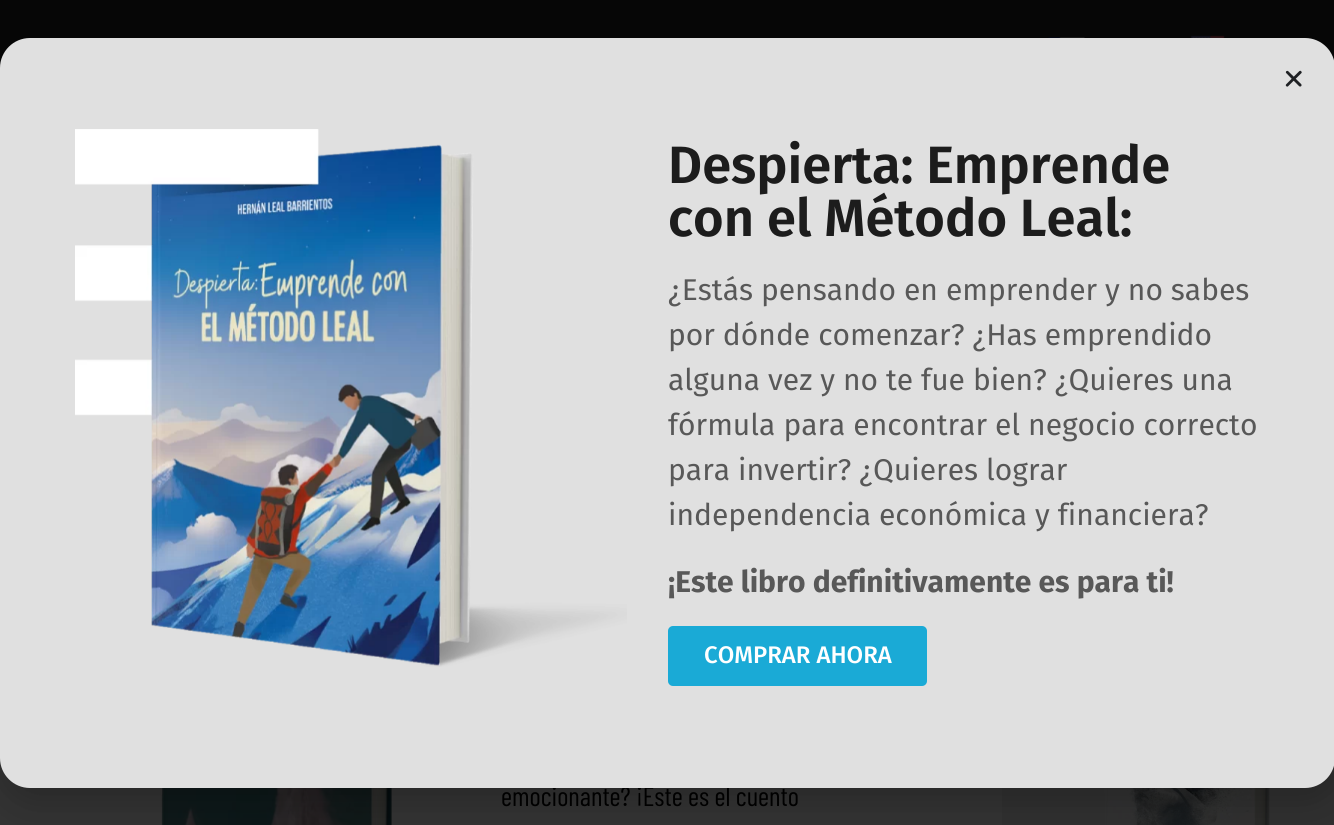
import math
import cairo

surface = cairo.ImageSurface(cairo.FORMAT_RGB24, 1334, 825)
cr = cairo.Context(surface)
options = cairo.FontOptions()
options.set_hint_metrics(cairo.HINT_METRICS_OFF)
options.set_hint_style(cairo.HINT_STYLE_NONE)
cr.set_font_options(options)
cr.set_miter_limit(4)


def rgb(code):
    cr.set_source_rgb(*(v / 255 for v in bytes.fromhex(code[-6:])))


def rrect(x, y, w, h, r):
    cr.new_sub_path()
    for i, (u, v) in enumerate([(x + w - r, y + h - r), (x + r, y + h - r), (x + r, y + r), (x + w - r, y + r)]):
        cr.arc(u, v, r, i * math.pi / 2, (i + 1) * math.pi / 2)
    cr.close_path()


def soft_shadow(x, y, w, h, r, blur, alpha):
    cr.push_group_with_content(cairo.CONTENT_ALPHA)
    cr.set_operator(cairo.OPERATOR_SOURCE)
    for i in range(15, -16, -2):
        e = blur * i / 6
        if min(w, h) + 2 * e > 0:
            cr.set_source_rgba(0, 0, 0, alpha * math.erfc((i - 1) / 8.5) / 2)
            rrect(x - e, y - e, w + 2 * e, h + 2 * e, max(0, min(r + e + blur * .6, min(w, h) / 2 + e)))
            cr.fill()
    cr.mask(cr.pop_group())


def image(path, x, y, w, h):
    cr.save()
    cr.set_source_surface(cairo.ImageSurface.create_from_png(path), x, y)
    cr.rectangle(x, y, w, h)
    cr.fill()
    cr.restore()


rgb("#333333")
cr.paint()
rgb("#060606")
cr.rectangle(0, 0, 1334, 68)
cr.fill()
image("img/1.png", 1048, 37, 37, 1)
image("img/2.png", 1190, 35, 35, 3)
image("img/5.png", 161, 788, 231, 37)
rgb("#303030")
cr.rectangle(1002, 765, 332, 60)
cr.fill()
image("img/6.png", 1104, 788, 166, 37)
rgb("#000000")
soft_shadow(-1, 45, 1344, 759, 35, 17, 0.2)
cr.select_font_face("Barlow Condensed")
cr.set_font_size(27)
rgb("#000000")
cr.move_to(501, 806)
cr.show_text("emocionante? ¡Este es el cuento")
rgb("#e0e0e0")
rrect(0, 38, 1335, 750, 30)
cr.fill()
image("img/3.png", 1285, 70, 17, 17)
rgb("#1aaad6")
rrect(668, 626, 259, 60, 5)
cr.fill()
cr.select_font_face("Fira Sans Medium")
cr.set_font_size(24)
rgb("#ffffff")
cr.move_to(704, 663)
cr.show_text("COMPRAR AHORA")
cr.select_font_face("Fira Sans", cairo.FONT_SLANT_NORMAL, cairo.FONT_WEIGHT_BOLD)
cr.set_font_size(30)
rgb("#585858")
cr.move_to(668, 592)
cr.show_text("¡Este libro definitivamente es para ti!")
cr.select_font_face("Fira Sans")
for x, y, s in [
    (668, 525, "independencia económica y financiera?"),
    (668, 480, "para invertir? ¿Quieres lograr"),
    (668, 435, "fórmula para encontrar el negocio correcto"),
    (668, 390, "alguna vez y no te fue bien? ¿Quieres una"),
    (668, 345, "por dónde comenzar? ¿Has emprendido"),
    (668, 300, "¿Estás pensando en emprender y no sabes"),
]:
    cr.move_to(x, y)
    cr.show_text(s)
cr.select_font_face("Fira Sans SemiBold")
cr.set_font_size(52.5)
rgb("#1c1c1c")
cr.move_to(668, 236)
cr.show_text("con el Método Leal:")
cr.move_to(668, 183)
cr.show_text("Despierta: Emprende")
image("img/4.png", 75, 129, 552, 538)
surface.write_to_png("page.png")
